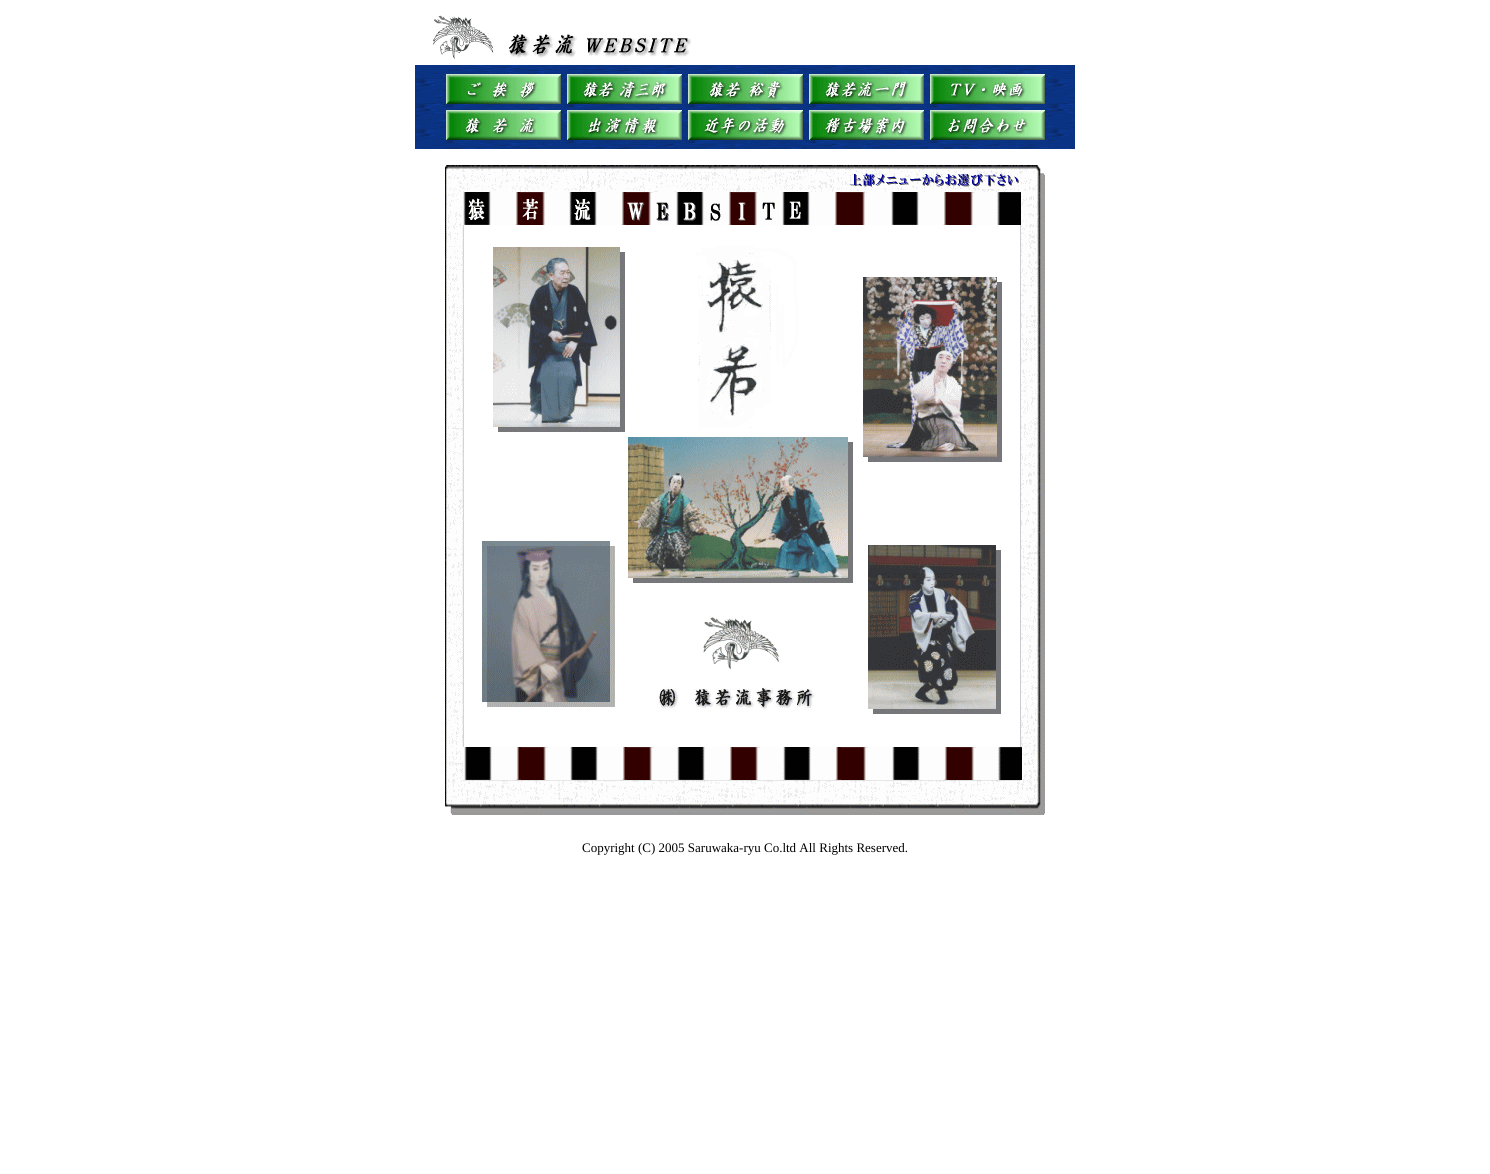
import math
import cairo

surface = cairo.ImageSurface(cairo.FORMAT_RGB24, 1490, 1174)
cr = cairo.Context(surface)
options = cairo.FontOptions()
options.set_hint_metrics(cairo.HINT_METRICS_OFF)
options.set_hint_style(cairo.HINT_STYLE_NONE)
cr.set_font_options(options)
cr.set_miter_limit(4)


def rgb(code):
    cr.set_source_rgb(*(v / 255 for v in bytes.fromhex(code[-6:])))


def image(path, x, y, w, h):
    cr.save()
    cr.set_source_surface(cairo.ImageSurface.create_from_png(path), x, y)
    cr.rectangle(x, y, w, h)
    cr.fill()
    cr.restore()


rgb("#ffffff")
cr.paint()
image("img/1.png", 433, 15, 258, 44)
image("img/2.png", 415, 65, 660, 6)
image("img/3.png", 415, 71, 28, 72)
image("img/4.png", 443, 71, 121, 36)
image("img/5.png", 446, 74, 115, 30)
image("img/4.png", 564, 71, 121, 36)
image("img/6.png", 567, 74, 115, 30)
image("img/4.png", 685, 71, 121, 36)
image("img/7.png", 688, 74, 115, 30)
image("img/4.png", 806, 71, 121, 36)
image("img/8.png", 809, 74, 115, 30)
image("img/4.png", 927, 71, 121, 36)
image("img/9.png", 930, 74, 115, 30)
image("img/10.png", 1048, 71, 27, 72)
image("img/4.png", 443, 107, 121, 36)
image("img/11.png", 446, 110, 115, 30)
image("img/4.png", 564, 107, 121, 36)
image("img/12.png", 567, 110, 115, 30)
image("img/4.png", 685, 107, 121, 36)
image("img/13.png", 688, 110, 115, 30)
image("img/4.png", 806, 107, 121, 36)
image("img/14.png", 809, 110, 115, 30)
image("img/4.png", 927, 107, 121, 36)
image("img/15.png", 930, 110, 115, 30)
image("img/2.png", 415, 143, 660, 6)
image("img/16.png", 445, 165, 600, 650)
cr.select_font_face("Liberation Serif")
cr.set_font_size(13)
rgb("#000000")
cr.move_to(582, 852)
cr.show_text("Copyright (C) 2005 Saruwaka-ryu Co.ltd All Rights Reserved.")
surface.write_to_png("page.png")
